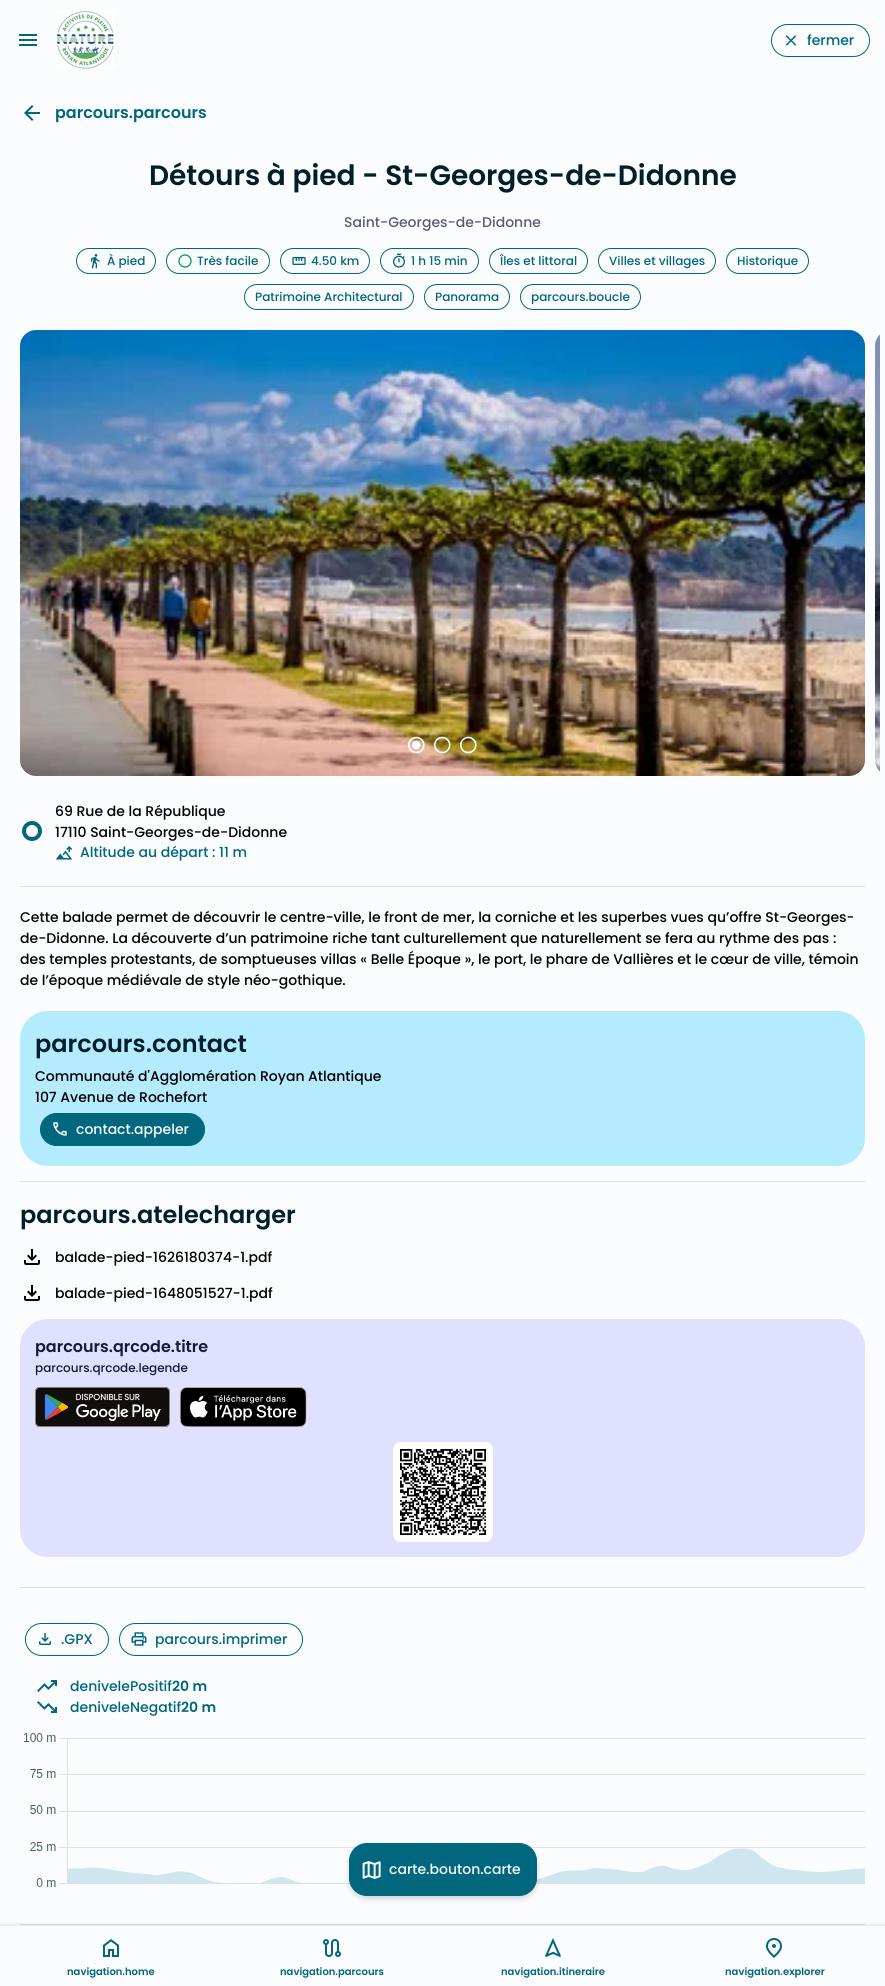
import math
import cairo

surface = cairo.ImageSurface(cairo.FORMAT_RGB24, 885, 1986)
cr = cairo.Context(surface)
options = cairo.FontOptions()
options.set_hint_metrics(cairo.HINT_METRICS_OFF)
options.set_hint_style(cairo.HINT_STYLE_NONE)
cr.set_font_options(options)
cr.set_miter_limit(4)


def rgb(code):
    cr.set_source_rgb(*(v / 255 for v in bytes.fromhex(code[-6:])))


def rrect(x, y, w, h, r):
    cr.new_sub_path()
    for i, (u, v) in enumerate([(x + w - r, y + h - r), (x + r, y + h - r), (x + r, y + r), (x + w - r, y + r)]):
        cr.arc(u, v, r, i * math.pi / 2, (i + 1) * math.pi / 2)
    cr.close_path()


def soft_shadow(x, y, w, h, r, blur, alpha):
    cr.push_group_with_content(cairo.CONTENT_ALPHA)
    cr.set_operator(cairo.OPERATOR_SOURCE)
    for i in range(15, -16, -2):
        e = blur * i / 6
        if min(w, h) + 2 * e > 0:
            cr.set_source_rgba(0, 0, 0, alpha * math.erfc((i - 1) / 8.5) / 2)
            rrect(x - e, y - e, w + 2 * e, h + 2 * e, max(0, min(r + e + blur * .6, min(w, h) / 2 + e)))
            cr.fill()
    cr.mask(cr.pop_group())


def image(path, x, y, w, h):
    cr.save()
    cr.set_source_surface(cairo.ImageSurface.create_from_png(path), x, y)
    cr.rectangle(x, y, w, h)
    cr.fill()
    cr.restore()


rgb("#fbfcfe")
cr.paint()
image("img/1.png", 19, 34, 18, 12)
image("img/2.png", 56, 10, 59, 59)
rrect(771.5, 24.5, 98, 32, 16)
rgb("#00677e")
cr.set_line_width(1)
cr.stroke()
image("img/3.png", 785, 35, 12, 11)
image("img/4.png", 24, 105, 16, 16)
rrect(76.5, 248.5, 79, 25, 12.5)
cr.stroke()
image("img/5.png", 91, 254, 9, 15)
rrect(166.5, 248.5, 103, 25, 12.5)
cr.stroke()
image("img/6.png", 178, 254, 14, 14)
rrect(280.5, 248.5, 89, 25, 12.5)
cr.stroke()
image("img/7.png", 292, 257, 14, 8)
rrect(380.5, 248.5, 98, 25, 12.5)
cr.stroke()
image("img/8.png", 393, 253, 12, 15)
rrect(489.5, 248.5, 98, 25, 12.5)
cr.stroke()
rrect(598.5, 248.5, 117, 25, 12.5)
cr.stroke()
rrect(726.5, 248.5, 82, 25, 12.5)
cr.stroke()
rrect(244.5, 284.5, 169, 25, 12.5)
cr.stroke()
rrect(424.5, 284.5, 85, 25, 12.5)
cr.stroke()
rrect(520.5, 284.5, 120, 25, 12.5)
cr.stroke()
image("img/9.png", 20, 330, 845, 446)
image("img/10.png", 875, 334, 5, 438)
image("img/11.png", 408, 736, 17, 18)
image("img/12.png", 433, 736, 18, 18)
image("img/13.png", 459, 736, 18, 18)
rgb("#dbe4e8")
cr.rectangle(20, 886, 845, 1)
cr.fill()
image("img/14.png", 22, 821, 20, 20)
image("img/15.png", 55, 846, 18, 14)
rgb("#b5ebff")
rrect(20, 1011, 845, 155, 28)
cr.fill()
rgb("#00677e")
rrect(40.5, 1113.5, 164, 32, 16)
cr.fill_preserve()
cr.stroke()
image("img/16.png", 53, 1122, 14, 14)
rgb("#dbe4e8")
cr.rectangle(20, 1181, 845, 1)
cr.fill()
image("img/17.png", 24, 1249, 16, 16)
image("img/17.png", 24, 1285, 16, 16)
rgb("#e0e0ff")
rrect(20, 1319, 845, 238, 28)
cr.fill()
image("img/18.png", 35, 1387, 135, 40)
image("img/19.png", 180, 1387, 127, 40)
image("img/20.png", 393, 1442, 100, 100)
rgb("#dbe4e8")
cr.rectangle(20, 1587, 845, 1)
cr.fill()
rrect(25.5, 1623.5, 83, 32, 16)
rgb("#00677e")
cr.stroke()
image("img/21.png", 39, 1633, 12, 12)
rrect(119.5, 1623.5, 183, 32, 16)
cr.stroke()
image("img/22.png", 131, 1632, 16, 14)
image("img/23.png", 37, 1680, 20, 12)
image("img/24.png", 37, 1701, 20, 12)
image("img/25.png", 23, 1733, 842, 154)
rgb("#dbe4e8")
cr.rectangle(20, 1924, 845, 1)
cr.fill()
rgb("#000000")
soft_shadow(349, 1846, 188, 53, 18, 3, 0.16)
rgb("#00677e")
rrect(349.5, 1843.5, 187, 52, 17.5)
cr.fill_preserve()
cr.stroke()
image("img/26.png", 362, 1861, 19, 18)
rgb("#000000")
soft_shadow(0, 1926, 885, 60, 0, 3, 0.16)
rgb("#fbfcfe")
cr.rectangle(0, 1926, 885, 60)
cr.fill()
image("img/27.png", 103, 1939, 16, 18)
image("img/28.png", 323, 1939, 18, 18)
image("img/29.png", 545, 1938, 16, 19)
image("img/30.png", 766, 1938, 16, 20)
cr.select_font_face("Poppins Medium")
cr.set_font_size(14)
rgb("#00677e")
cr.move_to(807, 45)
cr.show_text("fermer")
cr.select_font_face("Poppins SemiBold")
cr.set_font_size(16)
cr.move_to(55, 118)
cr.show_text("parcours.parcours")
cr.set_font_size(28)
rgb("#001f28")
cr.move_to(149, 185)
cr.show_text("Détours à pied - St-Georges-de-Didonne")
cr.select_font_face("Poppins Medium")
cr.set_font_size(14)
rgb("#595c7e")
cr.move_to(344, 227)
cr.show_text("Saint-Georges-de-Didonne")
cr.set_font_size(12)
rgb("#00677e")
for x, y, s in [
    (107, 265, "À pied"),
    (197, 265, "Très facile"),
    (311, 265, "4.50 km"),
    (411, 265, "1 h 15 min"),
    (500, 265, "Îles et littoral"),
    (609, 265, "Villes et villages"),
    (737, 265, "Historique"),
    (255, 301, "Patrimoine Architectural"),
    (435, 301, "Panorama"),
    (531, 301, "parcours.boucle"),
]:
    cr.move_to(x, y)
    cr.show_text(s)
cr.set_font_size(14)
rgb("#000000")
cr.move_to(55, 816)
cr.show_text("69 Rue de la République")
cr.move_to(55, 837)
cr.show_text("17110 Saint-Georges-de-Didonne")
rgb("#00677e")
cr.move_to(80, 857)
cr.show_text("Altitude au départ : 11 m")
rgb("#000000")
for x, y, s in [
    (20, 922, "Cette balade permet de découvrir le centre-ville, le front de mer, la corniche et les superbes vues qu’offre St-Georges-"),
    (20, 943, "de-Didonne. La découverte d’un patrimoine riche tant culturellement que naturellement se fera au rythme des pas :"),
    (20, 964, "des temples protestants, de somptueuses villas « Belle Époque », le port, le phare de Vallières et le cœur de ville, témoin"),
    (20, 985, "de l’époque médiévale de style néo-gothique."),
]:
    cr.move_to(x, y)
    cr.show_text(s)
cr.select_font_face("Poppins SemiBold")
cr.set_font_size(24)
rgb("#001f28")
cr.move_to(35, 1052)
cr.show_text("parcours.contact")
cr.select_font_face("Poppins Medium")
cr.set_font_size(14)
rgb("#000000")
cr.move_to(35, 1081)
cr.show_text("Communauté d'Agglomération Royan Atlantique")
cr.move_to(35, 1102)
cr.show_text("107 Avenue de Rochefort")
rgb("#fbfcfe")
cr.move_to(76, 1134)
cr.show_text("contact.appeler")
cr.select_font_face("Poppins SemiBold")
cr.set_font_size(24)
rgb("#001f28")
cr.move_to(20, 1223)
cr.show_text("parcours.atelecharger")
cr.select_font_face("Poppins Medium")
cr.set_font_size(14)
rgb("#000000")
cr.move_to(55, 1262)
cr.show_text("balade-pied-1626180374-1.pdf")
cr.move_to(55, 1298)
cr.show_text("balade-pied-1648051527-1.pdf")
cr.select_font_face("Poppins SemiBold")
cr.set_font_size(16)
rgb("#161937")
cr.move_to(35, 1352)
cr.show_text("parcours.qrcode.titre")
cr.select_font_face("Poppins Medium")
cr.set_font_size(12)
cr.move_to(35, 1372)
cr.show_text("parcours.qrcode.legende")
cr.set_font_size(14)
rgb("#00677e")
for x, y, s in [
    (61, 1644, ".GPX"),
    (155, 1644, "parcours.imprimer"),
    (70, 1691, "denivelePositif"),
]:
    cr.move_to(x, y)
    cr.show_text(s)
cr.select_font_face("Poppins SemiBold")
cr.move_to(172, 1691)
cr.show_text("20 m")
cr.select_font_face("Poppins Medium")
cr.move_to(70, 1712)
cr.show_text("deniveleNegatif")
cr.select_font_face("Poppins SemiBold")
cr.move_to(181, 1712)
cr.show_text("20 m")
cr.select_font_face("Poppins Medium")
rgb("#fbfcfe")
cr.move_to(389, 1874)
cr.show_text("carte.bouton.carte")
cr.select_font_face("Poppins SemiBold")
cr.set_font_size(10)
rgb("#00677e")
for x, y, s in [
    (67, 1975, "navigation.home"),
    (280, 1975, "navigation.parcours"),
    (501, 1975, "navigation.itineraire"),
    (725, 1975, "navigation.explorer"),
]:
    cr.move_to(x, y)
    cr.show_text(s)
surface.write_to_png("page.png")
